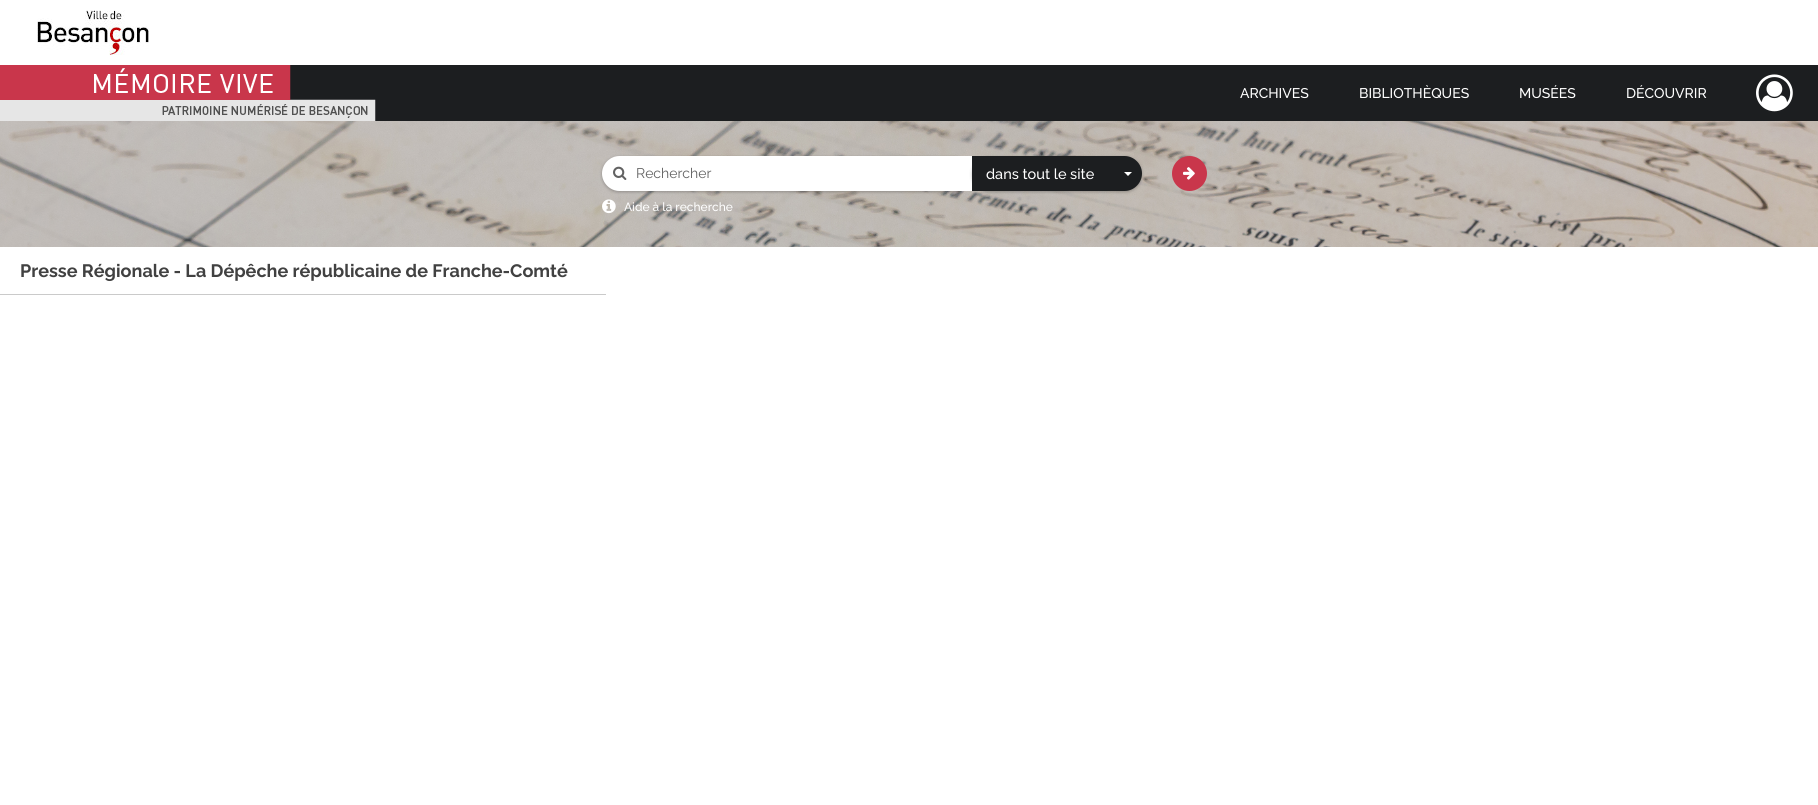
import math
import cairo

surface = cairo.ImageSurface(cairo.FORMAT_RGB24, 1818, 805)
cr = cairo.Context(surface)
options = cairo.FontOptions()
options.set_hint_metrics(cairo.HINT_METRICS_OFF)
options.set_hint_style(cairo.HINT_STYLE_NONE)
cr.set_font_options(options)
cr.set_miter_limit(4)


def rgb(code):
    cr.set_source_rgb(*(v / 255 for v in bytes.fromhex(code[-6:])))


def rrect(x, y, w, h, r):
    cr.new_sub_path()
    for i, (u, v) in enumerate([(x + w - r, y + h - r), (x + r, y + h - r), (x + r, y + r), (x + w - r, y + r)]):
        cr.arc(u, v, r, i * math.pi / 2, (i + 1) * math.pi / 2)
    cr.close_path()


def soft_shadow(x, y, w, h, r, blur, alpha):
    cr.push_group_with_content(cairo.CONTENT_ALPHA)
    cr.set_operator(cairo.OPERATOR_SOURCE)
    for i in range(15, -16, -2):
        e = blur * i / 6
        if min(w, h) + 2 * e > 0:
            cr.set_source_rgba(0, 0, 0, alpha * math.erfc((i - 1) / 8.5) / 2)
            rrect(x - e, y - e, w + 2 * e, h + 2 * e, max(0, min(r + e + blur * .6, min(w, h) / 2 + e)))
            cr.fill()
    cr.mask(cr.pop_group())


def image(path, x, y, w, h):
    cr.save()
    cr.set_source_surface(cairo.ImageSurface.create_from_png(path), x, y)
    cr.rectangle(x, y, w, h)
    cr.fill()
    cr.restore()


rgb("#ffffff")
cr.paint()
image("img/1.png", 37, 10, 112, 45)
rgb("#1c1e20")
cr.rectangle(290, 65, 1528, 56)
cr.fill()
image("img/2.png", 0, 65, 376, 56)
image("img/3.png", 1756, 74, 37, 38)
image("img/4.png", 0, 121, 1818, 126)
rgb("#000000")
soft_shadow(602, 157, 370, 35, 17.5, 1.5, 0.25)
rgb("#ffffff")
cr.new_path()
cr.move_to(619.5, 156)
cr.line_to(972, 156)
cr.line_to(972, 191)
cr.line_to(619.5, 191)
cr.curve_to(610, 191, 602, 183, 602, 173.5)
cr.curve_to(602, 164, 610, 156, 619.5, 156)
cr.close_path()
cr.fill()
image("img/5.png", 613, 166, 14, 14)
rgb("#000000")
soft_shadow(972, 157, 170, 35, 17.5, 1.5, 0.25)
rgb("#1c1e20")
cr.new_path()
cr.move_to(972, 156)
cr.line_to(1124.5, 156)
cr.curve_to(1134, 156, 1142, 164, 1142, 173.5)
cr.curve_to(1142, 183, 1134, 191, 1124.5, 191)
cr.line_to(972, 191)
cr.close_path()
cr.fill()
rgb("#ffffff")
cr.new_path()
cr.move_to(1124, 172)
cr.line_to(1132, 172)
cr.line_to(1128, 176)
cr.close_path()
cr.fill()
rgb("#c9364b")
cr.arc(1189.5, 173.5, 17.5, 0, 2 * math.pi)
cr.fill()
image("img/6.png", 1183, 167, 12, 13)
image("img/7.png", 602, 199, 14, 15)
rgb("#cacaca")
cr.rectangle(0, 294, 606, 1)
cr.fill()
cr.select_font_face("Raleway Medium")
cr.set_font_size(14)
rgb("#ffffff")
for x, y, s in [
    (1240, 98, "ARCHIVES"),
    (1359, 98, "BIBLIOTHÈQUES"),
    (1519, 98, "MUSÉES"),
    (1626, 98, "DÉCOUVRIR"),
]:
    cr.move_to(x, y)
    cr.show_text(s)
cr.select_font_face("Raleway")
rgb("#626262")
cr.move_to(636, 178)
cr.show_text("Rechercher")
cr.select_font_face("Raleway Medium")
cr.set_font_size(14.5)
rgb("#ffffff")
cr.move_to(986, 179)
cr.show_text("dans tout le site")
cr.set_font_size(12)
cr.move_to(624, 211)
cr.show_text("Aide à la recherche")
cr.select_font_face("Raleway", cairo.FONT_SLANT_NORMAL, cairo.FONT_WEIGHT_BOLD)
cr.set_font_size(18)
rgb("#414141")
cr.move_to(20, 277)
cr.show_text("Presse Régionale - La Dépêche républicaine de Franche-Comté")
surface.write_to_png("page.png")
